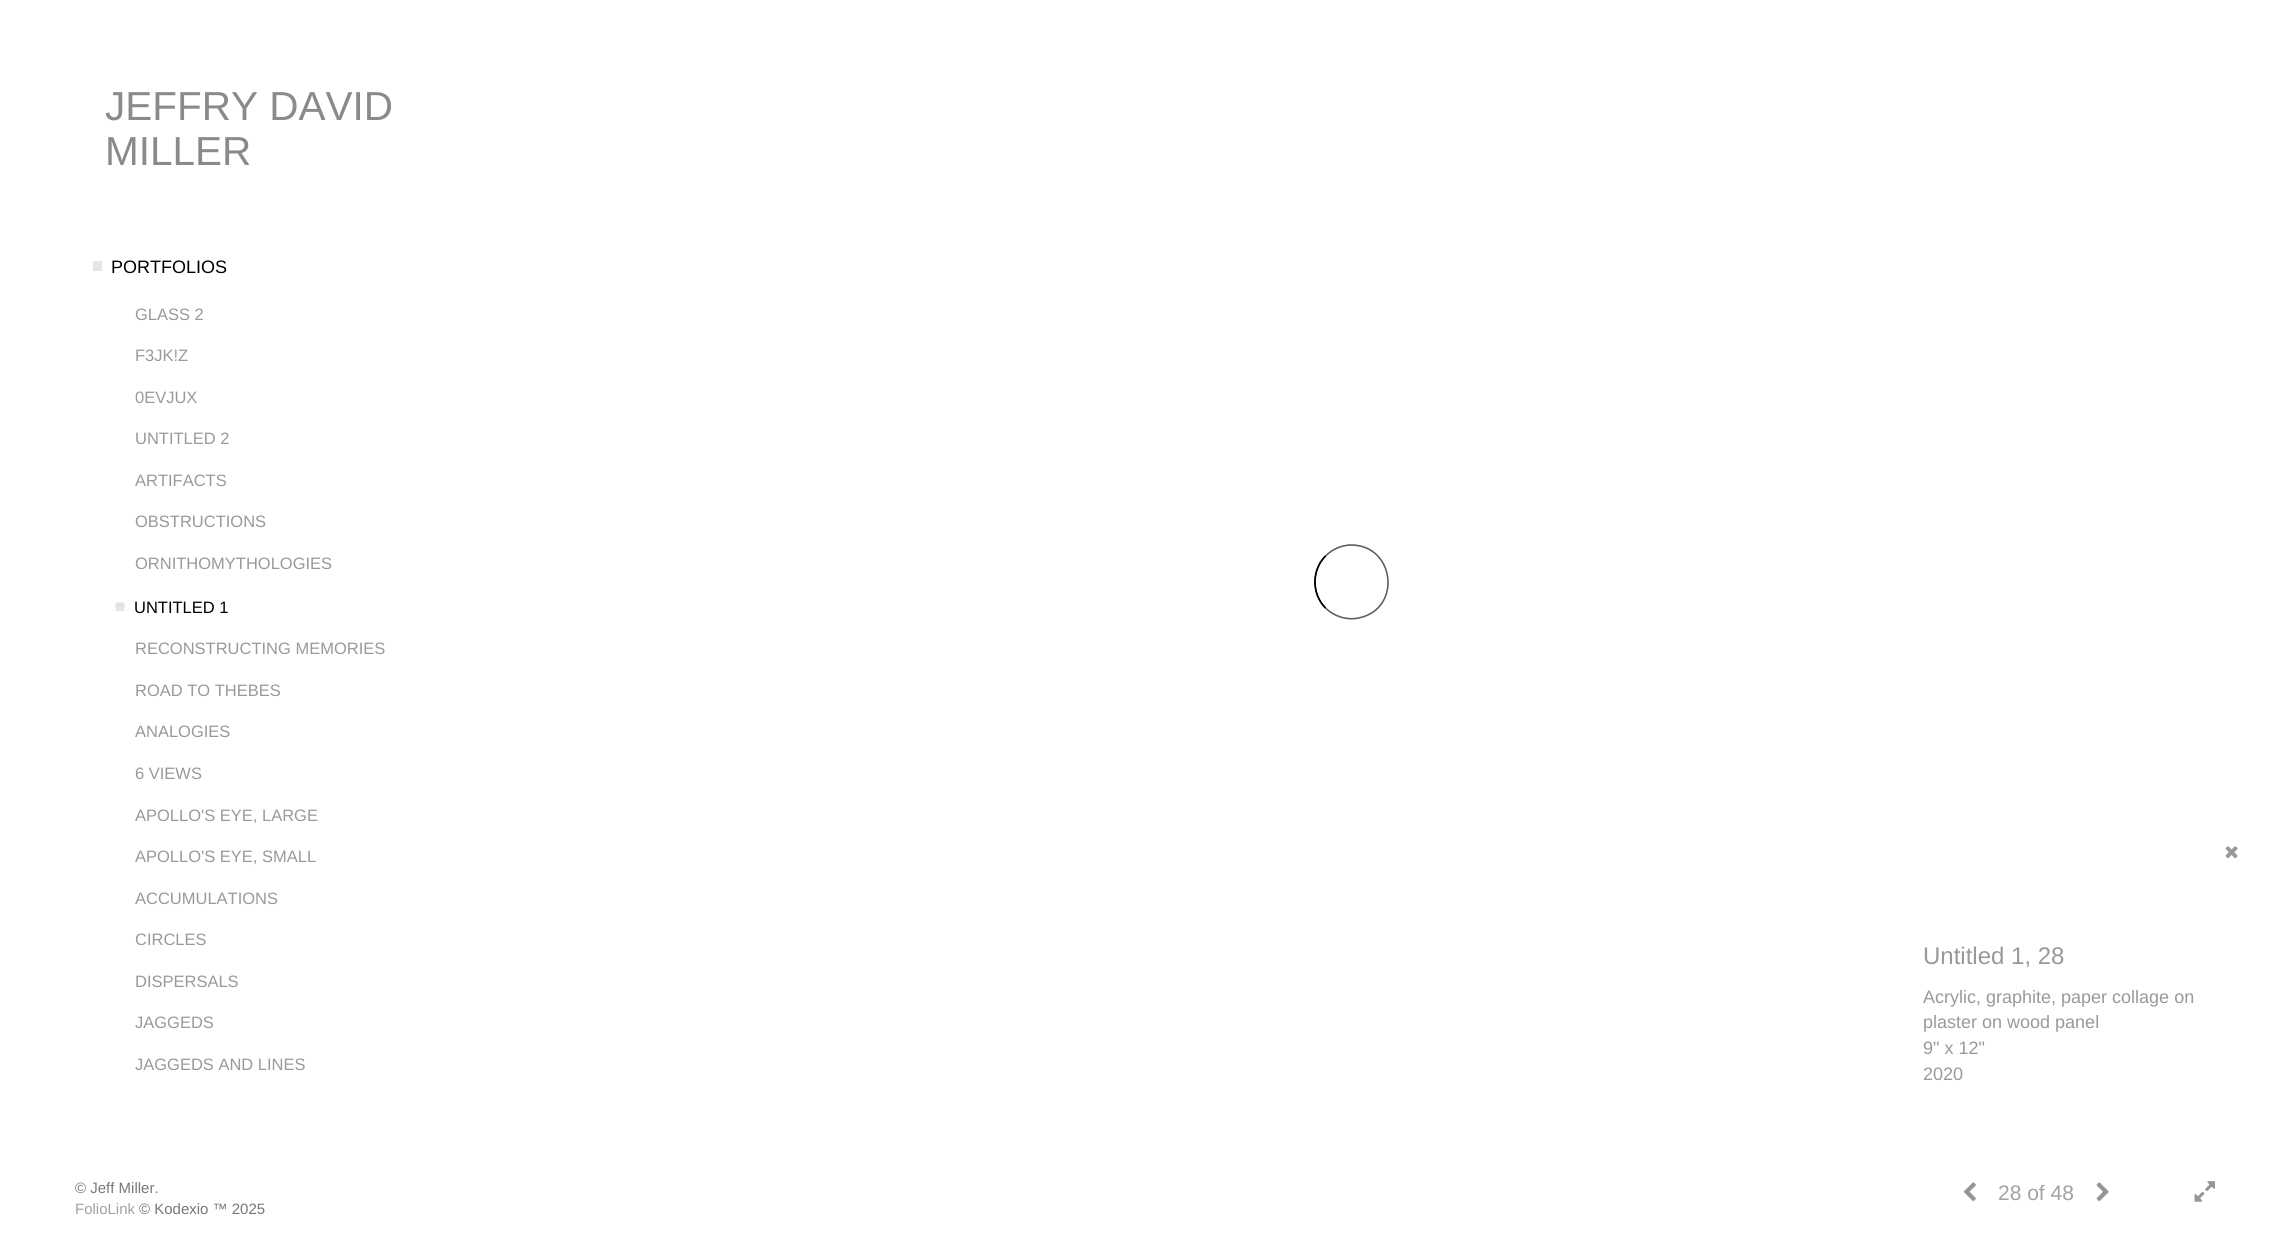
import math
import cairo

surface = cairo.ImageSurface(cairo.FORMAT_RGB24, 2283, 1237)
cr = cairo.Context(surface)
options = cairo.FontOptions()
options.set_hint_metrics(cairo.HINT_METRICS_OFF)
options.set_hint_style(cairo.HINT_STYLE_NONE)
cr.set_font_options(options)
cr.set_miter_limit(4)


def rgb(code):
    cr.set_source_rgb(*(v / 255 for v in bytes.fromhex(code[-6:])))


def image(path, x, y, w, h):
    cr.save()
    cr.set_source_surface(cairo.ImageSurface.create_from_png(path), x, y)
    cr.rectangle(x, y, w, h)
    cr.fill()
    cr.restore()


rgb("#ffffff")
cr.paint()
rgb("#e5e5e5")
cr.rectangle(93, 261, 9, 10)
cr.fill()
image("img/1.png", 115, 602, 10, 10)
image("img/2.png", 2225, 846, 13, 13)
cr.new_path()
cr.move_to(1325.5, 556)
cr.curve_to(1332.5, 549, 1342, 545, 1351.5, 545)
cr.curve_to(1395.5, 545.5, 1402, 609.5, 1358.5, 618)
cr.curve_to(1347, 620.5, 1334, 616.5, 1325.5, 608)
rgb("#999999")
cr.set_line_width(1.5)
cr.stroke()
cr.new_path()
cr.move_to(1325.5, 608)
cr.curve_to(1311.5, 594, 1311.5, 570, 1325.5, 556)
rgb("#000000")
cr.stroke()
cr.new_path()
cr.move_to(1325.5, 556)
cr.curve_to(1332.5, 549, 1342, 545, 1351.5, 545)
cr.curve_to(1395.5, 545.5, 1402, 609.5, 1358.5, 618)
cr.curve_to(1347, 620.5, 1334, 616.5, 1325.5, 608)
cr.set_source_rgba(0, 0, 0, 0.4)
cr.stroke()
cr.new_path()
cr.move_to(1325.5, 608)
cr.curve_to(1311.5, 594, 1311.5, 570, 1325.5, 556)
rgb("#000000")
cr.stroke()
image("img/3.png", 1963, 1182, 13, 20)
image("img/4.png", 2096, 1182, 13, 20)
image("img/5.png", 2194, 1181, 22, 21)
cr.select_font_face("Liberation Sans")
cr.set_font_size(40.5)
rgb("#8a8a8a")
cr.move_to(105, 120)
cr.show_text("JEFFRY DAVID")
cr.move_to(105, 165)
cr.show_text("MILLER")
cr.set_font_size(18)
rgb("#000000")
cr.move_to(111, 273)
cr.show_text("PORTFOLIOS")
cr.set_font_size(16.5)
rgb("#999999")
for x, y, s in [
    (135, 320, "GLASS 2"),
    (135, 361, "F3JK!Z"),
    (135, 403, "0EVJUX"),
    (135, 444, "UNTITLED 2"),
    (135, 486, "ARTIFACTS"),
    (135, 527, "OBSTRUCTIONS"),
    (135, 569, "ORNITHOMYTHOLOGIES"),
]:
    cr.move_to(x, y)
    cr.show_text(s)
rgb("#000000")
cr.move_to(134, 613)
cr.show_text("UNTITLED 1")
rgb("#999999")
for x, y, s in [
    (135, 654, "RECONSTRUCTING MEMORIES"),
    (135, 696, "ROAD TO THEBES"),
    (135, 737, "ANALOGIES"),
    (135, 779, "6 VIEWS"),
    (135, 821, "APOLLO'S EYE, LARGE"),
    (135, 862, "APOLLO'S EYE, SMALL"),
    (135, 904, "ACCUMULATIONS"),
    (135, 945, "CIRCLES"),
    (135, 987, "DISPERSALS"),
    (135, 1028, "JAGGEDS"),
    (135, 1070, "JAGGEDS AND LINES"),
]:
    cr.move_to(x, y)
    cr.show_text(s)
cr.set_font_size(24)
cr.move_to(1923, 964)
cr.show_text("Untitled 1, 28")
cr.set_font_size(18)
for x, y, s in [
    (1923, 1003, "Acrylic, graphite, paper collage on"),
    (1923, 1028, "plaster on wood panel"),
    (1923, 1054, "9\" x 12\""),
    (1923, 1080, "2020"),
]:
    cr.move_to(x, y)
    cr.show_text(s)
cr.set_font_size(15)
rgb("#777777")
cr.move_to(75, 1193)
cr.show_text("© Jeff Miller.")
rgb("#a2a2a2")
cr.move_to(75, 1214)
cr.show_text("FolioLink")
rgb("#777777")
cr.move_to(139, 1214)
cr.show_text("© Kodexio ™ 2025")
cr.set_font_size(21)
rgb("#a2a2a2")
cr.move_to(1998, 1200)
cr.show_text("28 of 48")
surface.write_to_png("page.png")
